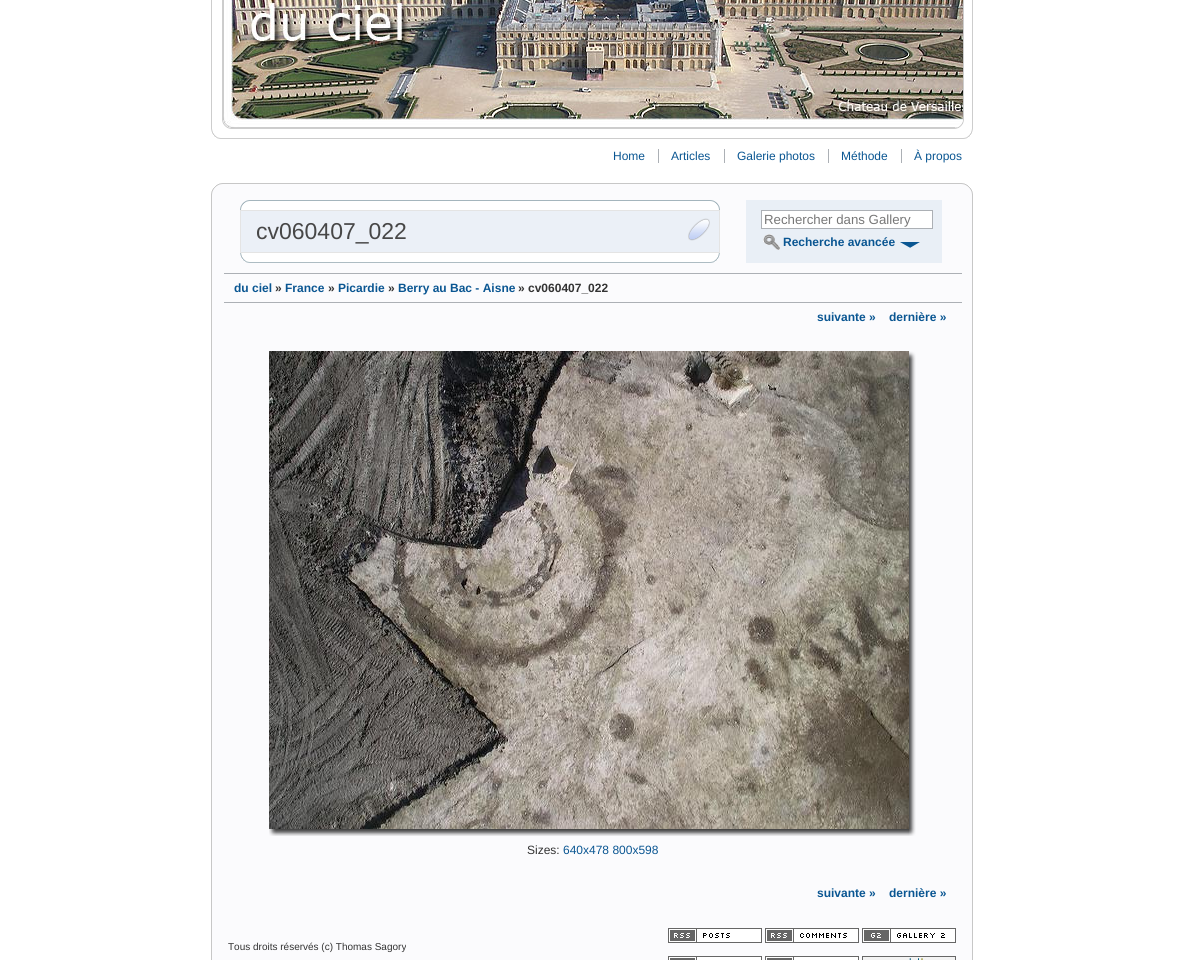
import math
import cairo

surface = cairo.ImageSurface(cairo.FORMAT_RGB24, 1183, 960)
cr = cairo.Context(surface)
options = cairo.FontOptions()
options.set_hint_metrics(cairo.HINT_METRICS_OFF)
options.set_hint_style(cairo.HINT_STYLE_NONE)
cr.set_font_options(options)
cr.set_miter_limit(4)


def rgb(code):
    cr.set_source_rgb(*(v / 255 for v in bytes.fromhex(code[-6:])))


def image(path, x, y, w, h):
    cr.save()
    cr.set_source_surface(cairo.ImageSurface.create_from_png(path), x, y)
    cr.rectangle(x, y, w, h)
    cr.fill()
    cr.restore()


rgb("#ffffff")
cr.paint()
rgb("#cdcdcd")
cr.rectangle(972, 0, 1, 129)
cr.fill()
cr.rectangle(211, 0, 1, 129)
cr.fill()
image("img/1.png", 223, 0, 740, 128)
cr.rectangle(222.5, -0.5, 741, 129)
cr.set_line_width(1)
cr.stroke()
image("img/2.png", 222, 120, 9, 9)
image("img/3.png", 955, 120, 9, 9)
image("img/4.png", 211, 129, 10, 10)
cr.rectangle(221, 138, 742, 1)
cr.fill()
image("img/5.png", 963, 129, 10, 10)
for x, y, w, h, color in [
    (658, 149, 1, 14, "#acb0b5"),
    (724, 149, 1, 14, "#acb0b5"),
    (828, 149, 1, 14, "#acb0b5"),
    (901, 149, 1, 14, "#acb0b5"),
]:
    rgb(color)
    cr.rectangle(x, y, w, h)
    cr.fill()
image("img/6.png", 211, 183, 12, 12)
rgb("#fbfbfd")
cr.rectangle(223, 184, 738, 11)
cr.fill()
rgb("#c7c7c7")
cr.rectangle(223, 183, 738, 1)
cr.fill()
image("img/7.png", 961, 183, 12, 12)
for x, y, w, h, color in [
    (212, 195, 760, 765, "#fbfbfd"),
    (972, 195, 1, 765, "#c7c7c7"),
    (211, 195, 1, 765, "#c7c7c7"),
]:
    rgb(color)
    cr.rectangle(x, y, w, h)
    cr.fill()
image("img/8.png", 240, 200, 10, 10)
rgb("#ffffff")
cr.rectangle(250, 201, 460, 9)
cr.fill()
rgb("#a4b5bd")
cr.rectangle(250, 200, 460, 1)
cr.fill()
image("img/9.png", 710, 200, 10, 10)
rgb("#ebf0f7")
cr.rectangle(240.5, 210.5, 479, 42)
cr.fill_preserve()
rgb("#e4e4e4")
cr.stroke()
image("img/10.png", 688, 218, 22, 23)
image("img/11.png", 240, 253, 10, 10)
rgb("#ffffff")
cr.rectangle(250, 253, 460, 9)
cr.fill()
rgb("#adbcc3")
cr.rectangle(250, 262, 460, 1)
cr.fill()
image("img/12.png", 710, 253, 10, 10)
rgb("#e9eff6")
cr.rectangle(746, 200, 196, 63)
cr.fill()
rgb("#ffffff")
cr.rectangle(761.5, 210.5, 171, 18)
cr.fill_preserve()
rgb("#acb0b5")
cr.stroke()
image("img/13.png", 763, 234, 17, 16)
image("img/14.png", 900, 242, 20, 6)
cr.rectangle(224, 273, 738, 1)
cr.fill()
cr.rectangle(224, 302, 738, 1)
cr.fill()
image("img/15.png", 269, 351, 640, 478)
image("img/16.png", 909, 351, 7, 10)
image("img/17.png", 909, 361, 7, 468)
image("img/18.png", 269, 829, 9, 7)
image("img/19.png", 278, 829, 631, 7)
image("img/20.png", 909, 829, 7, 7)
image("img/21.png", 668, 928, 94, 15)
image("img/22.png", 765, 928, 94, 15)
image("img/23.png", 862, 928, 94, 15)
image("img/24.png", 668, 956, 94, 4)
image("img/24.png", 765, 956, 94, 4)
image("img/25.png", 862, 956, 94, 4)
cr.select_font_face("Liberation Sans")
cr.set_font_size(12)
rgb("#0a5692")
for x, y, s in [
    (613, 160, "Home"),
    (671, 160, "Articles"),
    (737, 160, "Galerie photos"),
    (841, 160, "Méthode"),
    (914, 160, "À propos"),
]:
    cr.move_to(x, y)
    cr.show_text(s)
cr.set_font_size(23)
rgb("#474747")
cr.move_to(256, 239)
cr.show_text("cv060407_022")
cr.set_font_size(13.25)
rgb("#777777")
cr.move_to(764, 224)
cr.show_text("Rechercher dans Gallery")
cr.select_font_face("Liberation Sans", cairo.FONT_SLANT_NORMAL, cairo.FONT_WEIGHT_BOLD)
cr.set_font_size(12)
rgb("#0a5692")
cr.move_to(783, 246)
cr.show_text("Recherche avancée")
cr.move_to(234, 292)
cr.show_text("du ciel")
rgb("#333333")
cr.move_to(275, 292)
cr.show_text("»")
rgb("#0a5692")
cr.move_to(285, 292)
cr.show_text("France")
rgb("#333333")
cr.move_to(328, 292)
cr.show_text("»")
rgb("#0a5692")
cr.move_to(338, 292)
cr.show_text("Picardie")
rgb("#333333")
cr.move_to(388, 292)
cr.show_text("»")
rgb("#0a5692")
cr.move_to(398, 292)
cr.show_text("Berry au Bac - Aisne")
rgb("#333333")
cr.move_to(518, 292)
cr.show_text("» cv060407_022")
rgb("#0a5692")
cr.move_to(817, 321)
cr.show_text("suivante »")
cr.move_to(889, 321)
cr.show_text("dernière »")
cr.select_font_face("Liberation Sans")
rgb("#333333")
cr.move_to(527, 854)
cr.show_text("Sizes:")
rgb("#0a5692")
cr.move_to(563, 854)
cr.show_text("640x478 800x598")
cr.select_font_face("Liberation Sans", cairo.FONT_SLANT_NORMAL, cairo.FONT_WEIGHT_BOLD)
cr.move_to(817, 897)
cr.show_text("suivante »")
cr.move_to(889, 897)
cr.show_text("dernière »")
cr.select_font_face("Liberation Sans")
cr.set_font_size(10)
rgb("#333333")
cr.move_to(228, 950)
cr.show_text("Tous droits réservés (c) Thomas Sagory")
surface.write_to_png("page.png")
